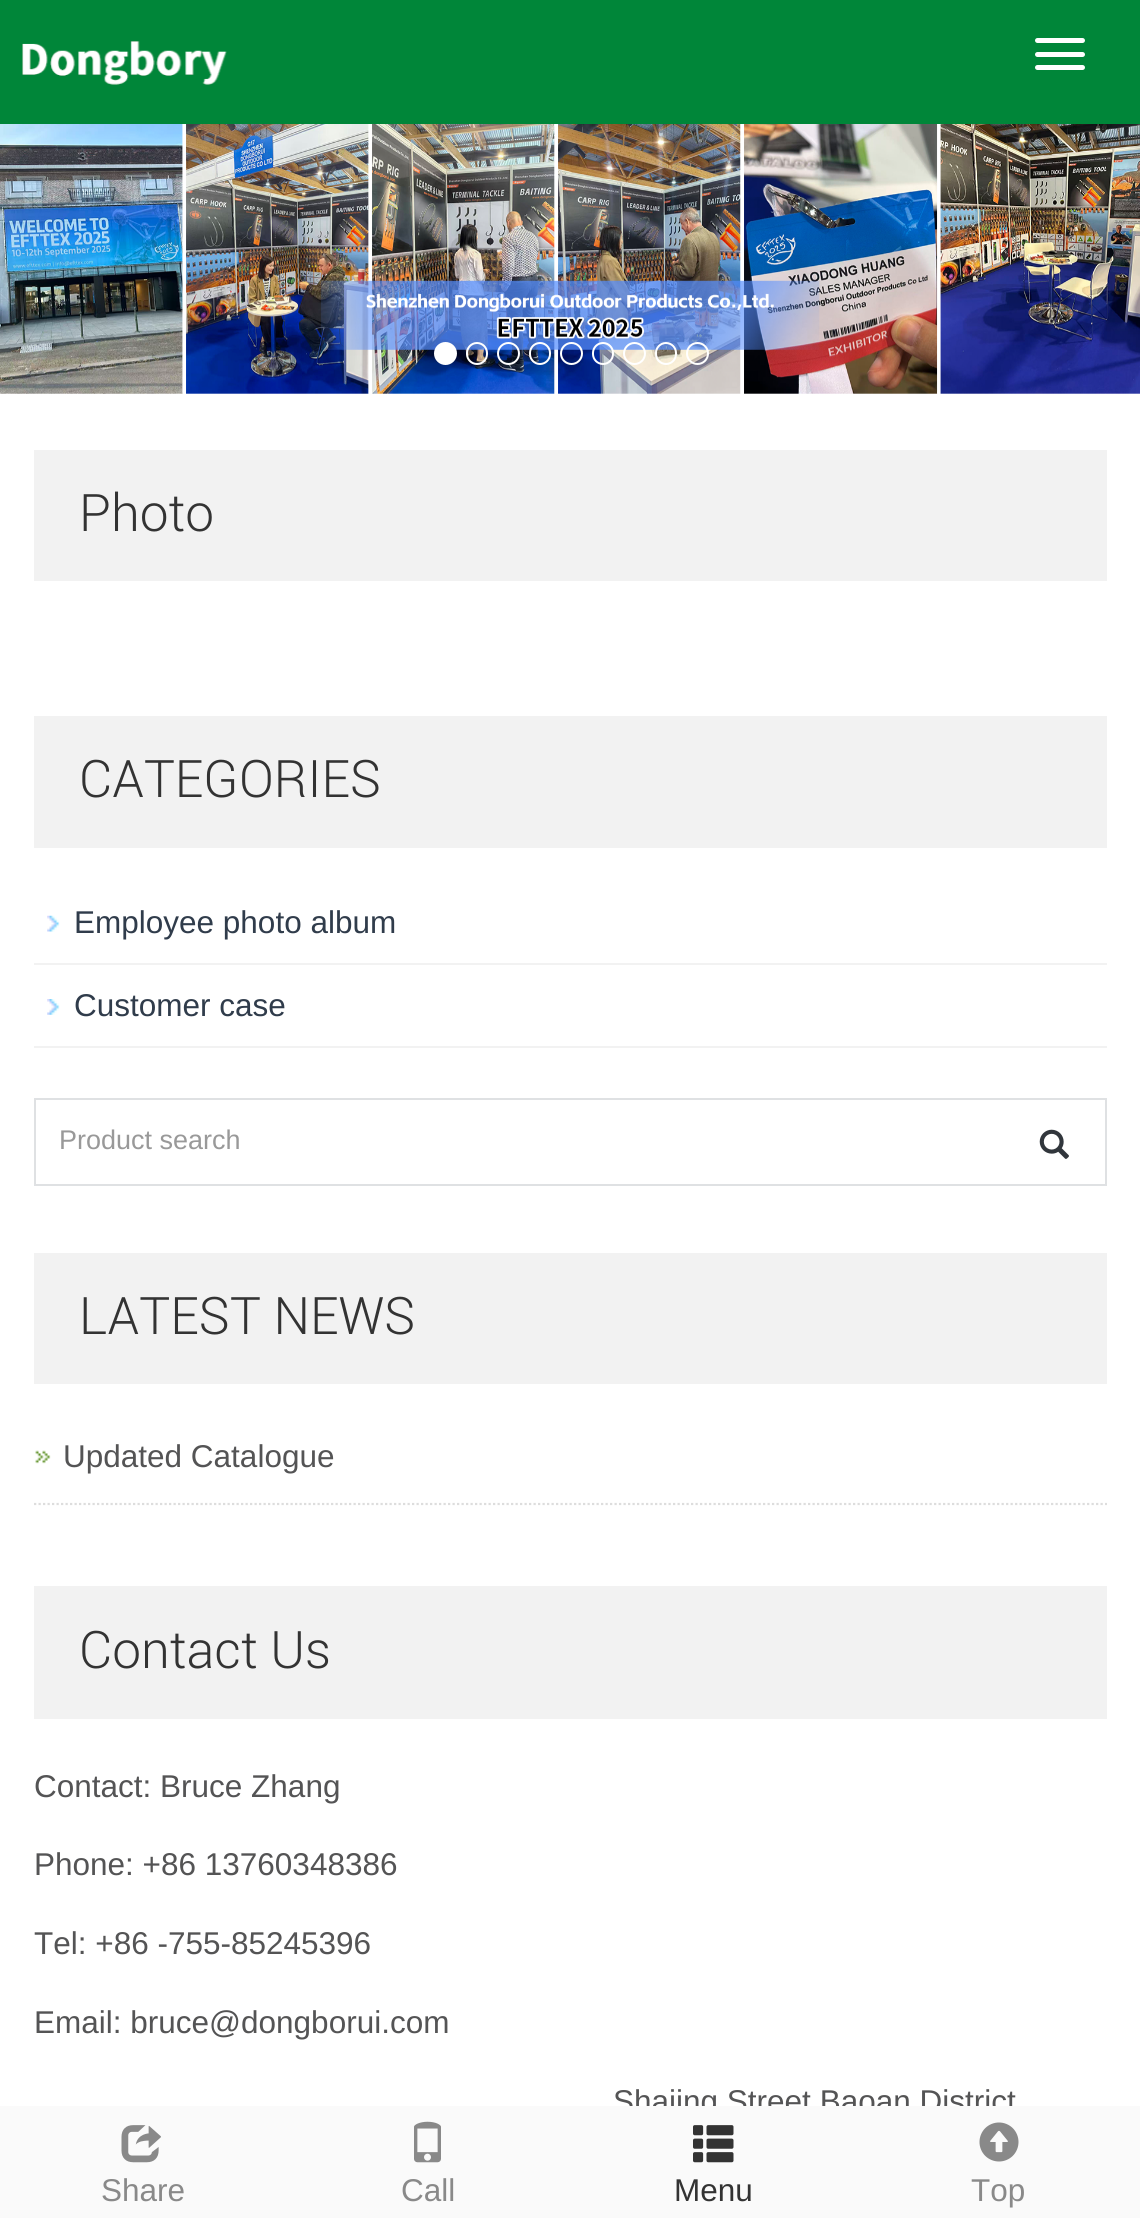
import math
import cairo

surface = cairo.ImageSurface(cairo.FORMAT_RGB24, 1140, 2218)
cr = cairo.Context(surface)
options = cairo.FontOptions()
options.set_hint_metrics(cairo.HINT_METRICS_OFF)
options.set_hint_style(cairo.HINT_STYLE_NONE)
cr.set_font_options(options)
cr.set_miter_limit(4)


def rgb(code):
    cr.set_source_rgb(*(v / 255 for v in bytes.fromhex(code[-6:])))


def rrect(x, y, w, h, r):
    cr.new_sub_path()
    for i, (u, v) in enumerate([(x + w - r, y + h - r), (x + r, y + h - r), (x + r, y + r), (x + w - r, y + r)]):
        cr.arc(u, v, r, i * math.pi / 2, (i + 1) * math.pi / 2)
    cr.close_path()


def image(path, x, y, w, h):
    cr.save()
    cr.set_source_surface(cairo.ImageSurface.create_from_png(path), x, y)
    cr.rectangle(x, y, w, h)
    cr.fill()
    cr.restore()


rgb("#ffffff")
cr.paint()
rgb("#008639")
cr.rectangle(0, 0, 1140, 124)
cr.fill()
image("img/1.png", 22, 41, 205, 44)
rgb("#ffffff")
rrect(1035, 38, 50, 5, 2.5)
cr.fill()
rrect(1035, 52, 50, 5, 2.5)
cr.fill()
rrect(1035, 65, 50, 5, 2.5)
cr.fill()
image("img/2.png", 0, 124, 1140, 270)
cr.arc(445.5, 353.5, 10.5, 0, 2 * math.pi)
cr.fill_preserve()
cr.stroke()
rrect(467, 343, 20, 21, 10)
cr.stroke()
cr.arc(508.5, 353.5, 10.5, 0, 2 * math.pi)
cr.stroke()
rrect(530, 343, 20, 21, 10)
cr.stroke()
cr.arc(571.5, 353.5, 10.5, 0, 2 * math.pi)
cr.stroke()
rrect(593, 343, 20, 21, 10)
cr.stroke()
cr.arc(634.5, 353.5, 10.5, 0, 2 * math.pi)
cr.stroke()
rrect(656, 343, 20, 21, 10)
cr.stroke()
cr.arc(697.5, 353.5, 10.5, 0, 2 * math.pi)
cr.stroke()
rgb("#f2f2f2")
cr.rectangle(34, 450, 1073, 131)
cr.fill()
cr.rectangle(34, 716, 1073, 132)
cr.fill()
image("img/3.png", 47, 915, 13, 17)
cr.rectangle(34, 963, 1073, 2)
cr.fill()
image("img/4.png", 47, 999, 13, 16)
cr.rectangle(34, 1046, 1073, 2)
cr.fill()
cr.rectangle(35, 1099, 1071, 86)
rgb("#dfe1e3")
cr.stroke()
image("img/5.png", 1039, 1129, 30, 30)
rgb("#f2f2f2")
cr.rectangle(34, 1253, 1073, 131)
cr.fill()
image("img/6.png", 35, 1450, 16, 14)
cr.new_path()
cr.move_to(34, 1504)
cr.line_to(1107, 1504)
rgb("#dddddd")
cr.set_line_width(2.2)
cr.set_dash([2.25, 2.25])
cr.stroke()
rgb("#f2f2f2")
cr.rectangle(34, 1586, 1073, 133)
cr.fill()
cr.select_font_face("Roboto Light")
cr.set_font_size(51.75)
rgb("#333333")
cr.move_to(79, 531)
cr.show_text("Photo")
cr.move_to(79, 797)
cr.show_text("CATEGORIES")
cr.select_font_face("Liberation Sans")
cr.set_font_size(31.5)
rgb("#303c4b")
cr.move_to(74, 933)
cr.show_text("Employee photo album")
cr.move_to(74, 1016)
cr.show_text("Customer case")
cr.set_font_size(27)
rgb("#999999")
cr.move_to(59, 1149)
cr.show_text("Product search")
cr.select_font_face("Roboto Light")
cr.set_font_size(51.75)
rgb("#333333")
cr.move_to(79, 1334)
cr.show_text("LATEST NEWS")
cr.select_font_face("Liberation Sans")
cr.set_font_size(31.5)
rgb("#545455")
cr.move_to(63, 1467)
cr.show_text("Updated Catalogue")
cr.select_font_face("Roboto Light")
cr.set_font_size(51.75)
rgb("#333333")
cr.move_to(79, 1668)
cr.show_text("Contact Us")
cr.select_font_face("Liberation Sans")
cr.set_font_size(31.5)
rgb("#545455")
for x, y, s in [
    (34, 1797, "Contact: Bruce Zhang"),
    (34, 1875, "Phone: +86 13760348386"),
    (34, 1954, "Tel: +86 -755-85245396"),
    (34, 2033, "Email: bruce@dongborui.com"),
    (613, 2112, "Shajing Street Baoan District"),
]:
    cr.move_to(x, y)
    cr.show_text(s)
rgb("#fafafa")
cr.rectangle(0, 2106, 1140, 112)
cr.fill()
image("img/7.png", 121, 2125, 40, 38)
rgb("#898989")
cr.move_to(101, 2201)
cr.show_text("Share")
image("img/8.png", 414, 2121, 27, 42)
cr.move_to(401, 2201)
cr.show_text("Call")
image("img/9.png", 693, 2125, 41, 38)
rgb("#333333")
cr.move_to(674, 2201)
cr.show_text("Menu")
image("img/10.png", 979, 2122, 40, 40)
rgb("#898989")
cr.move_to(971, 2201)
cr.show_text("Top")
surface.write_to_png("page.png")
